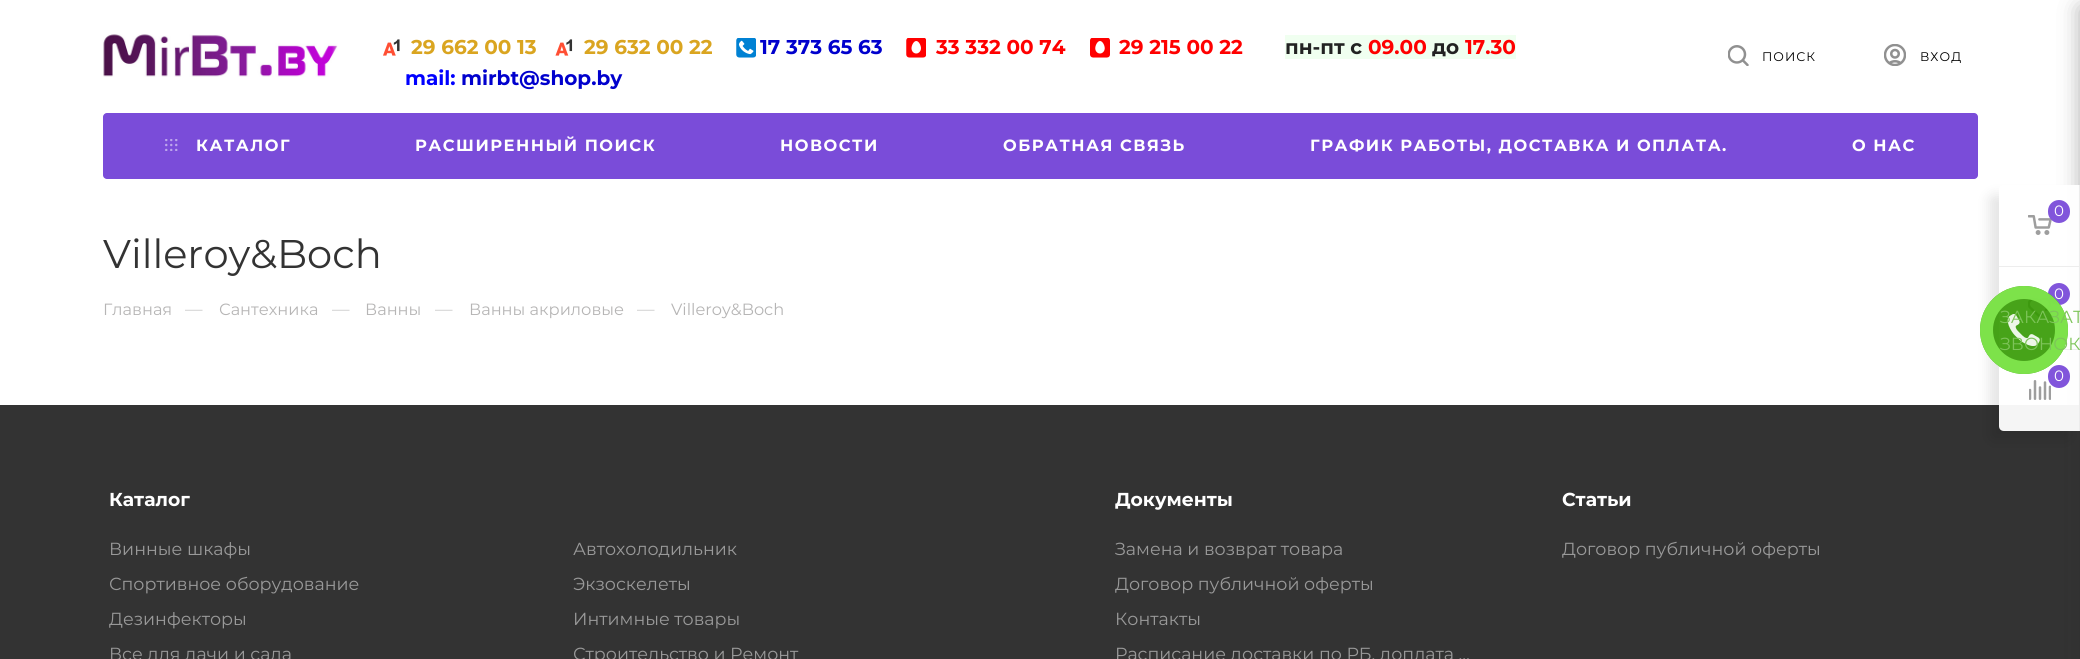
import math
import cairo

surface = cairo.ImageSurface(cairo.FORMAT_RGB24, 2080, 659)
cr = cairo.Context(surface)
options = cairo.FontOptions()
options.set_hint_metrics(cairo.HINT_METRICS_OFF)
options.set_hint_style(cairo.HINT_STYLE_NONE)
cr.set_font_options(options)
cr.set_miter_limit(4)


def rgb(code):
    cr.set_source_rgb(*(v / 255 for v in bytes.fromhex(code[-6:])))


def tracked(x, y, s, letter, word):
    cr.move_to(x, y)
    for ch in s:
        cr.show_text(ch)
        cr.rel_move_to(letter + word * (ch == ' '), 0)


def rrect(x, y, w, h, r):
    cr.new_sub_path()
    for i, (u, v) in enumerate([(x + w - r, y + h - r), (x + r, y + h - r), (x + r, y + r), (x + w - r, y + r)]):
        cr.arc(u, v, r, i * math.pi / 2, (i + 1) * math.pi / 2)
    cr.close_path()


def soft_shadow(x, y, w, h, r, blur, alpha):
    cr.push_group_with_content(cairo.CONTENT_ALPHA)
    cr.set_operator(cairo.OPERATOR_SOURCE)
    for i in range(15, -16, -2):
        e = blur * i / 6
        if min(w, h) + 2 * e > 0:
            cr.set_source_rgba(0, 0, 0, alpha * math.erfc((i - 1) / 8.5) / 2)
            rrect(x - e, y - e, w + 2 * e, h + 2 * e, max(0, min(r + e + blur * .6, min(w, h) / 2 + e)))
            cr.fill()
    cr.mask(cr.pop_group())


def image(path, x, y, w, h):
    cr.save()
    cr.set_source_surface(cairo.ImageSurface.create_from_png(path), x, y)
    cr.rectangle(x, y, w, h)
    cr.fill()
    cr.restore()


rgb("#ffffff")
cr.paint()
image("img/1.png", 103, 34, 235, 43)
rgb("#f0fff0")
cr.rectangle(1285, 35, 231, 24)
cr.fill()
image("img/2.png", 383, 39, 17, 17)
image("img/3.png", 555, 39, 18, 17)
image("img/4.png", 736, 38, 20, 20)
image("img/5.png", 906, 38, 20, 20)
image("img/6.png", 1090, 38, 20, 20)
image("img/7.png", 1728, 45, 21, 21)
image("img/8.png", 1884, 44, 22, 22)
rgb("#7a4cd9")
rrect(103, 113, 1875, 66, 4)
cr.fill()
image("img/9.png", 165, 139, 13, 12)
rgb("#333333")
cr.rectangle(0, 405, 2080, 254)
cr.fill()
rgb("#2c2c2c")
soft_shadow(2080, 8, 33, 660, 0, 11, 0.38)
cr.save()
cr.set_fill_rule(cairo.FILL_RULE_EVEN_ODD)
cr.new_path()
cr.move_to(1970, 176)
cr.line_to(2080, 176)
cr.line_to(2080, 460)
cr.line_to(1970, 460)
cr.close_path()
cr.move_to(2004, 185)
cr.line_to(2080, 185)
cr.line_to(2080, 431)
cr.line_to(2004, 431)
cr.curve_to(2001, 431, 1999, 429, 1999, 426)
cr.line_to(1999, 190)
cr.curve_to(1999, 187, 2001, 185, 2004, 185)
cr.close_path()
cr.clip()
rgb("#000000")
soft_shadow(1989, 195, 81, 246, 5, 6, 0.1)
cr.restore()
cr.set_source_rgba(1, 1, 1, 0.95)
cr.new_path()
cr.move_to(2004, 185)
cr.line_to(2080, 185)
cr.line_to(2080, 431)
cr.line_to(2004, 431)
cr.curve_to(2001, 431, 1999, 429, 1999, 426)
cr.line_to(1999, 190)
cr.curve_to(1999, 187, 2001, 185, 2004, 185)
cr.close_path()
cr.fill()
cr.set_source_rgba(0.925, 0.925, 0.925, 0.95)
cr.rectangle(2079, 185, 1, 246)
cr.fill()
rgb("#ededed")
cr.rectangle(1999, 266, 80, 1)
cr.fill()
image("img/10.png", 2028, 215, 24, 20)
rgb("#8155db")
rrect(2048, 200, 22, 23, 11)
cr.fill()
rgb("#ededed")
cr.rectangle(1999, 349, 80, 1)
cr.fill()
image("img/11.png", 2028, 298, 23, 20)
rgb("#8155db")
cr.arc(2059, 294, 11, 0, 2 * math.pi)
cr.fill()
image("img/12.png", 2029, 380, 22, 20)
rrect(2048, 365, 22, 23, 11)
cr.fill()
cr.select_font_face("Montserrat", cairo.FONT_SLANT_NORMAL, cairo.FONT_WEIGHT_BOLD)
cr.set_font_size(20)
rgb("#222222")
cr.move_to(1285, 54)
cr.show_text("пн-пт с")
rgb("#ff0000")
cr.move_to(1368, 54)
cr.show_text("09.00")
rgb("#222222")
cr.move_to(1432, 54)
cr.show_text("до")
rgb("#ff0000")
cr.move_to(1465, 54)
cr.show_text("17.30")
rgb("#0000ff")
cr.move_to(405, 85)
cr.show_text("mail:")
rgb("#0000cd")
cr.move_to(461, 85)
cr.show_text("mirbt@shop.by")
rgb("#daa520")
cr.move_to(411, 54)
cr.show_text("29 662 00 13")
cr.move_to(584, 54)
cr.show_text("29 632 00 22")
rgb("#0000cd")
cr.move_to(760, 54)
cr.show_text("17 373 65 63")
rgb("#ff0000")
cr.move_to(936, 54)
cr.show_text("33 332 00 74")
cr.move_to(1119, 54)
cr.show_text("29 215 00 22")
cr.select_font_face("Montserrat")
cr.set_font_size(12.5)
rgb("#000000")
tracked(1762, 61, "ПОИСК", 1, 0)
tracked(1920, 61, "ВХОД", 1, 0)
cr.select_font_face("Montserrat", cairo.FONT_SLANT_NORMAL, cairo.FONT_WEIGHT_BOLD)
cr.set_font_size(16.25)
rgb("#ffffff")
for x, y, s in [
    (196, 151, "КАТАЛОГ"),
    (415, 151, "РАСШИРЕННЫЙ ПОИСК"),
    (780, 151, "НОВОСТИ"),
    (1003, 151, "ОБРАТНАЯ СВЯЗЬ"),
    (1310, 151, "ГРАФИК РАБОТЫ, ДОСТАВКА И ОПЛАТА."),
    (1852, 151, "О НАС"),
]:
    tracked(x, y, s, 1.5, 0)
cr.select_font_face("Montserrat")
cr.set_font_size(40)
rgb("#333333")
cr.move_to(103, 268)
cr.show_text("Villeroy&Boch")
cr.set_font_size(16.25)
rgb("#b6b5b5")
cr.move_to(103, 315)
cr.show_text("Главная")
cr.set_font_size(17.5)
rgb("#cccccc")
cr.move_to(185, 315)
cr.show_text("—")
cr.set_font_size(16.25)
rgb("#b6b5b5")
cr.move_to(219, 315)
cr.show_text("Сантехника")
cr.set_font_size(17.5)
rgb("#cccccc")
cr.move_to(332, 315)
cr.show_text("—")
cr.set_font_size(16.25)
rgb("#b6b5b5")
cr.move_to(365, 315)
cr.show_text("Ванны")
cr.set_font_size(17.5)
rgb("#cccccc")
cr.move_to(435, 315)
cr.show_text("—")
cr.set_font_size(16.25)
rgb("#b6b5b5")
cr.move_to(469, 315)
cr.show_text("Ванны акриловые")
cr.set_font_size(17.5)
rgb("#cccccc")
cr.move_to(637, 315)
cr.show_text("—")
cr.set_font_size(16.25)
rgb("#b6b5b5")
cr.move_to(671, 315)
cr.show_text("Villeroy&Boch")
cr.set_font_size(15)
rgb("#ffffff")
for x, y, s in [
    (2054, 216, "0"),
    (2054, 299, "0"),
    (2054, 381, "0"),
]:
    cr.move_to(x, y)
    cr.show_text(s)
cr.select_font_face("Montserrat", cairo.FONT_SLANT_NORMAL, cairo.FONT_WEIGHT_BOLD)
cr.set_font_size(18.75)
cr.move_to(109, 506)
cr.show_text("Каталог")
cr.select_font_face("Montserrat")
cr.set_font_size(17.5)
rgb("#999999")
for x, y, s in [
    (109, 555, "Винные шкафы"),
    (573, 555, "Автохолодильник"),
    (109, 590, "Спортивное оборудование"),
    (573, 590, "Экзоскелеты"),
    (109, 625, "Дезинфекторы"),
    (573, 625, "Интимные товары"),
    (109, 660, "Все для дачи и сада"),
    (573, 660, "Строительство и Ремонт"),
]:
    cr.move_to(x, y)
    cr.show_text(s)
cr.select_font_face("Montserrat", cairo.FONT_SLANT_NORMAL, cairo.FONT_WEIGHT_BOLD)
cr.set_font_size(18.75)
rgb("#ffffff")
cr.move_to(1115, 506)
cr.show_text("Документы")
cr.select_font_face("Montserrat")
cr.set_font_size(17.5)
rgb("#999999")
for x, y, s in [
    (1115, 555, "Замена и возврат товара"),
    (1115, 590, "Договор публичной оферты"),
    (1115, 625, "Контакты"),
    (1115, 660, "Расписание доставки по РБ, доплата …"),
]:
    cr.move_to(x, y)
    cr.show_text(s)
cr.select_font_face("Montserrat", cairo.FONT_SLANT_NORMAL, cairo.FONT_WEIGHT_BOLD)
cr.set_font_size(18.75)
rgb("#ffffff")
cr.move_to(1562, 506)
cr.show_text("Статьи")
cr.select_font_face("Montserrat")
cr.set_font_size(17.5)
rgb("#999999")
cr.move_to(1562, 555)
cr.show_text("Договор публичной оферты")
cr.set_source_rgba(0.2, 0.6, 0, 0.9)
cr.new_path()
cr.arc(2024, 330, 44, 0, 2 * math.pi)
cr.fill()
image("img/13.png", 2007, 314, 33, 32)
cr.arc(2024, 330, 37.5, 0, 2 * math.pi)
cr.set_source_rgba(0.514, 0.914, 0.314, 0.9)
cr.set_line_width(13)
cr.stroke()
rgb("#7dc459")
cr.move_to(2000, 323)
cr.show_text("ЗАКАЗАТ")
cr.move_to(2000, 350)
cr.show_text("ЗВОНОК")
surface.write_to_png("page.png")
